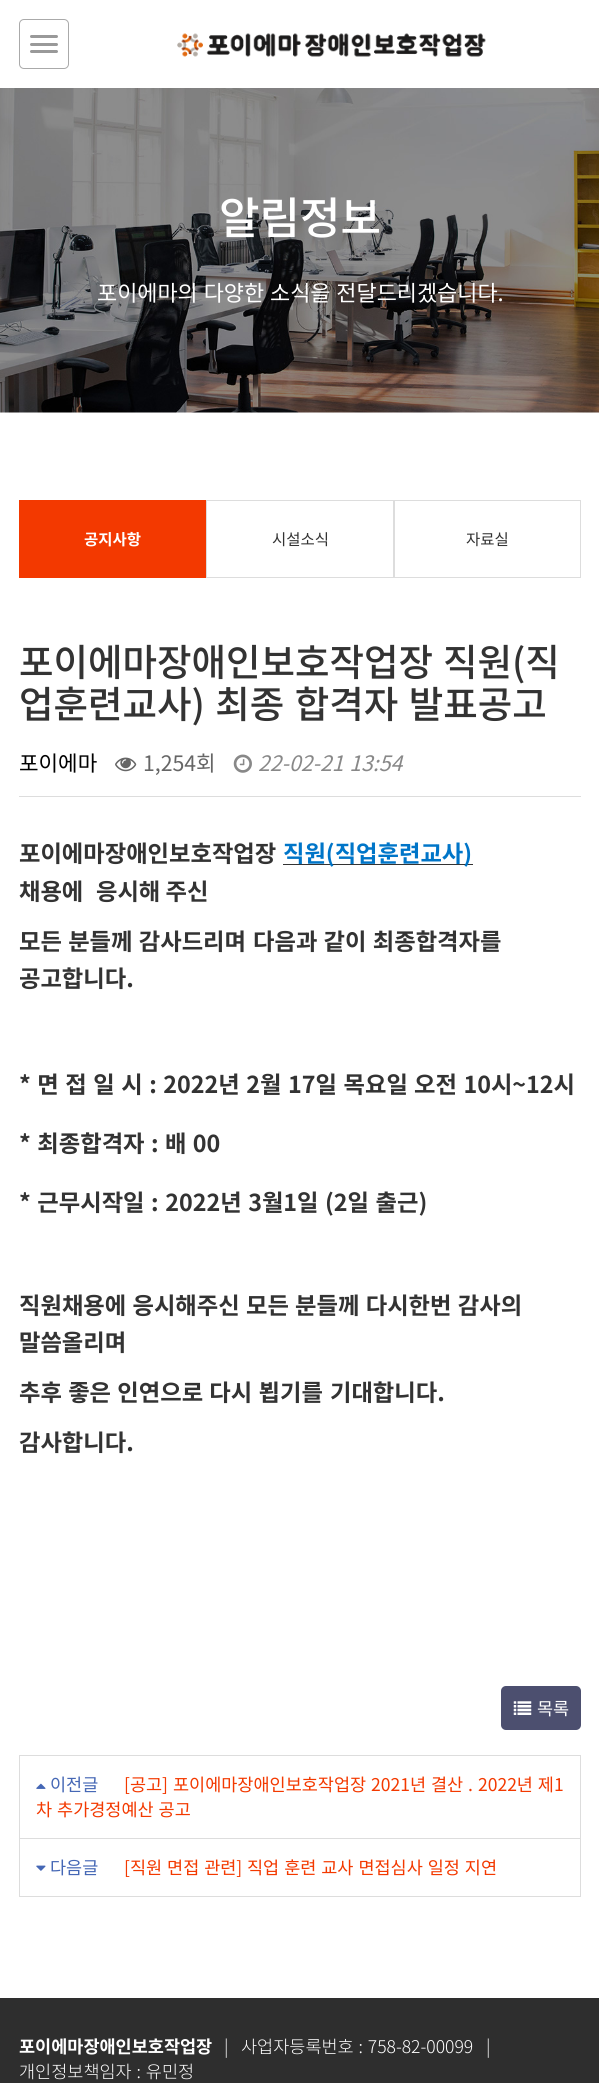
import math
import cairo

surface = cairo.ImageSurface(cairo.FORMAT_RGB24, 599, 2083)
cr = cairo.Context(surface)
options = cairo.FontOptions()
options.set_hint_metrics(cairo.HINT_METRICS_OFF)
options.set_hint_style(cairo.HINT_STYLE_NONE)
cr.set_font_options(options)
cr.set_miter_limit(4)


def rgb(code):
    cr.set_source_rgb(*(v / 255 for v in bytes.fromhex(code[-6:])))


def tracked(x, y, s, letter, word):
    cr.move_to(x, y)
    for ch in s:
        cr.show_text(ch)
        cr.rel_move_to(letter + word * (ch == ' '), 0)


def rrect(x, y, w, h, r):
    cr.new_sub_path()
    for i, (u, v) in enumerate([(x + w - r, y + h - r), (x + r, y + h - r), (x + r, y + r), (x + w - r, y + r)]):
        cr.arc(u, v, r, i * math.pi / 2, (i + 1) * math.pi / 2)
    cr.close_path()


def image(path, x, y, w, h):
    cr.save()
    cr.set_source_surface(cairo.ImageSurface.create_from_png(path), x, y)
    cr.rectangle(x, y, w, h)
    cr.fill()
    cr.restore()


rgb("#ffffff")
cr.paint()
rrect(19.5, 19.5, 49, 49, 4.5)
rgb("#aaaaaa")
cr.set_line_width(1)
cr.stroke()
rgb("#999999")
rrect(30, 35, 28, 3, 1.5)
cr.fill()
rrect(30, 43, 28, 3, 1.5)
cr.fill()
rrect(30, 50, 28, 3, 1.5)
cr.fill()
image("img/1.png", 177, 33, 309, 24)
image("img/2.png", 0, 88, 599, 325)
rgb("#f33900")
cr.rectangle(19, 500, 187, 78)
cr.fill()
cr.rectangle(206.5, 500.5, 187, 77)
rgb("#dddddd")
cr.stroke()
cr.rectangle(394.5, 500.5, 186, 77)
cr.stroke()
cr.rectangle(19, 796, 562, 1)
cr.fill()
image("img/3.png", 115, 757, 22, 15)
image("img/4.png", 233, 754, 19, 19)
rgb("#333333")
cr.rectangle(283, 864, 190, 1)
cr.fill()
rgb("#4c4f6f")
rrect(501, 1686, 80, 44, 5)
cr.fill()
image("img/5.png", 513, 1701, 19, 14)
for x, y, w, h, color in [
    (19, 1896, 562, 1, "#dddddd"),
    (19, 1755, 562, 1, "#dddddd"),
    (580, 1755, 1, 83, "#dddddd"),
    (19, 1755, 1, 83, "#dddddd"),
]:
    rgb(color)
    cr.rectangle(x, y, w, h)
    cr.fill()
image("img/6.png", 36, 1783, 10, 6)
for x, y, w, h, color in [
    (19, 1838, 562, 1, "#dddddd"),
    (580, 1838, 1, 58, "#dddddd"),
    (19, 1838, 1, 58, "#dddddd"),
]:
    rgb(color)
    cr.rectangle(x, y, w, h)
    cr.fill()
image("img/7.png", 36, 1865, 10, 6)
rgb("#2e2e2e")
cr.rectangle(0, 1998, 599, 85)
cr.fill()
cr.select_font_face("Noto Sans KR Medium")
cr.set_font_size(44)
rgb("#ffffff")
cr.move_to(219, 234)
cr.show_text("알림정보")
cr.select_font_face("Noto Sans KR")
cr.set_font_size(21.9)
tracked(97, 301, "포이에마의 다양한 소식을 전달드리겠습니다.", 0, 1)
cr.select_font_face("Noto Sans KR", cairo.FONT_SLANT_NORMAL, cairo.FONT_WEIGHT_BOLD)
cr.set_font_size(15.5)
cr.move_to(84, 545)
cr.show_text("공지사항")
cr.select_font_face("Noto Sans KR")
rgb("#333333")
cr.move_to(272, 545)
cr.show_text("시설소식")
cr.move_to(466, 545)
cr.show_text("자료실")
cr.select_font_face("Noto Sans KR Medium")
cr.set_font_size(37.5)
cr.move_to(19, 676)
cr.show_text("포이에마장애인보호작업장")
cr.move_to(443, 676)
cr.show_text("직원(직")
tracked(19, 718, "업훈련교사) 최종 합격자 발표공고", 0, 2)
cr.select_font_face("Noto Sans KR")
cr.set_font_size(21.25)
rgb("#000000")
cr.move_to(19, 771)
cr.show_text("포이에마")
rgb("#666666")
cr.move_to(143, 771)
cr.show_text("1,254회")
cr.select_font_face("Noto Sans KR", cairo.FONT_SLANT_ITALIC)
rgb("#888888")
tracked(258, 771, "22-02-21 13:54", 0, 1)
cr.select_font_face("Noto Sans KR", cairo.FONT_SLANT_NORMAL, cairo.FONT_WEIGHT_BOLD)
cr.set_font_size(23.3)
rgb("#333333")
cr.move_to(19, 862)
cr.show_text("포이에마장애인보호작업장")
rgb("#0075c8")
cr.move_to(283, 862)
cr.show_text("직원(직업훈련교사)")
rgb("#333333")
cr.move_to(19, 900)
cr.show_text("채용에")
cr.move_to(96, 900)
cr.show_text("응시해 주신")
tracked(19, 950, "모든 분들께 감사드리며", 0, 1)
tracked(253, 950, "다음과 같이 최종합격자를", 0, 1)
cr.move_to(19, 987)
cr.show_text("공고합니다.")
for x, y, s in [
    (19, 1093, "* 면 접 일 시 : 2022년 2월 17일 목요일"),
    (414, 1093, "오전 10시~12시"),
    (19, 1152, "* 최종합격자 :"),
]:
    tracked(x, y, s, 0, 1.25)
tracked(165, 1152, "배 00", 0, 1)
tracked(19, 1211, "* 근무시작일 : 2022년 3월1일 (2일 출근)", 0, 1.25)
tracked(19, 1314, "직원채용에 응시해주신 모든 분들께 다시한번 감사의", 0, 1)
cr.move_to(19, 1351)
cr.show_text("말씀올리며")
tracked(19, 1401, "추후 좋은 인연으로 다시 뵙기를", 0, 1)
cr.move_to(330, 1401)
cr.show_text("기대합니다.")
cr.move_to(19, 1451)
cr.show_text("감사합니다.")
cr.select_font_face("Noto Sans KR")
cr.set_font_size(17.5)
rgb("#ffffff")
cr.move_to(537, 1715)
cr.show_text("목록")
rgb("#4567b5")
cr.move_to(50, 1791)
cr.show_text("이전글")
rgb("#f33900")
tracked(124, 1791, "[공고] 포이에마장애인보호작업장 2021년 결산", 0, 1)
cr.move_to(468, 1791)
cr.show_text(".")
tracked(478, 1791, "2022년 제1", 0, 1)
tracked(36, 1816, "차 추가경정예산 공고", 0, 1)
rgb("#4567b5")
cr.move_to(50, 1874)
cr.show_text("다음글")
rgb("#f33900")
tracked(124, 1874, "[직원 면접 관련]", 0, 1)
tracked(247, 1874, "직업 훈련 교사 면접심사 일정 지연", 0, 1)
cr.select_font_face("Noto Sans KR", cairo.FONT_SLANT_NORMAL, cairo.FONT_WEIGHT_BOLD)
rgb("#ffffff")
cr.move_to(19, 2053)
cr.show_text("포이에마장애인보호작업장")
cr.select_font_face("Noto Sans KR Light")
cr.move_to(224, 2053)
cr.show_text("|")
tracked(241, 2053, "사업자등록번호 : 758-82-00099", 0, 1)
cr.move_to(486, 2053)
cr.show_text("|")
tracked(19, 2078, "개인정보책임자 : 유민정", 0, 1)
surface.write_to_png("page.png")
